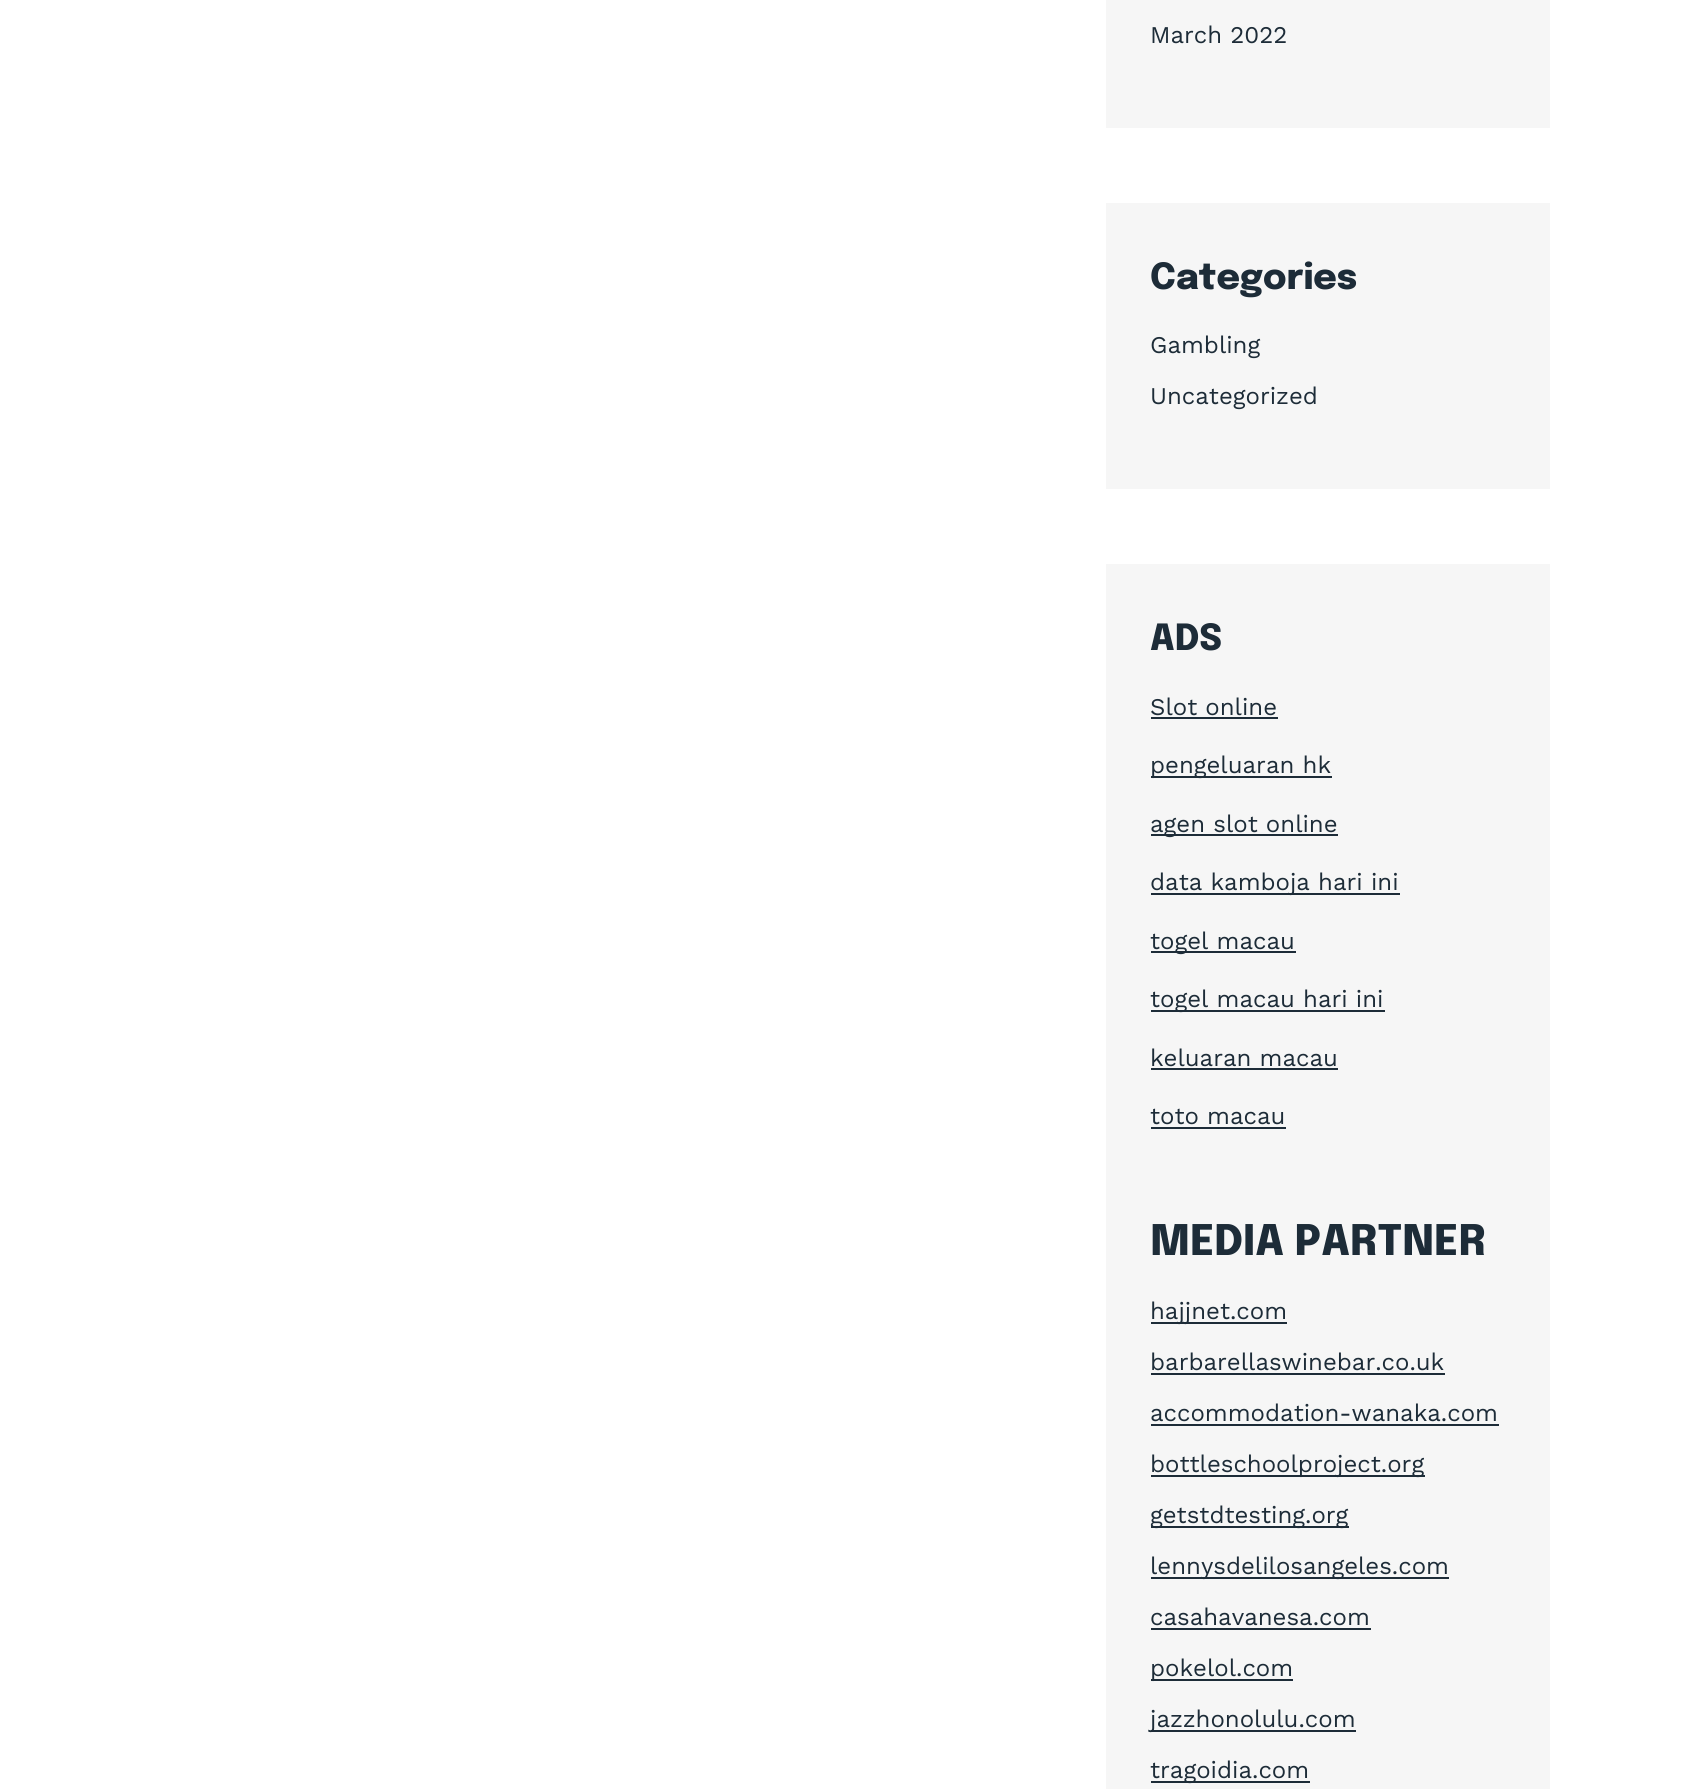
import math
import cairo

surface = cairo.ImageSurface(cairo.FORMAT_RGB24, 1695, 1789)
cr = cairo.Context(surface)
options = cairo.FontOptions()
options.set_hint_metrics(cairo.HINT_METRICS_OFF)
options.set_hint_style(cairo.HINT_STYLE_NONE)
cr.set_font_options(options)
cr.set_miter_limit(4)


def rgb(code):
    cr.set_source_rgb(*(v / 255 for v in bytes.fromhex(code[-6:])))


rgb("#ffffff")
cr.paint()
for x, y, w, h, color in [
    (1106, 0, 444, 128, "#f6f6f6"),
    (1106, 203, 444, 286, "#f6f6f6"),
    (1106, 564, 444, 1225, "#f6f6f6"),
    (1151, 717, 127, 2, "#1d2c38"),
    (1151, 776, 181, 2, "#1d2c38"),
    (1151, 834, 187, 2, "#1d2c38"),
    (1151, 893, 249, 2, "#1d2c38"),
    (1151, 951, 145, 2, "#1d2c38"),
    (1151, 1010, 234, 2, "#1d2c38"),
    (1151, 1068, 187, 2, "#1d2c38"),
    (1151, 1127, 135, 2, "#1d2c38"),
    (1151, 1322, 136, 2, "#1d2c38"),
    (1151, 1373, 294, 2, "#1d2c38"),
    (1151, 1424, 348, 2, "#1d2c38"),
    (1151, 1475, 274, 2, "#1d2c38"),
    (1151, 1526, 198, 2, "#1d2c38"),
    (1151, 1577, 298, 2, "#1d2c38"),
    (1151, 1628, 220, 2, "#1d2c38"),
    (1151, 1679, 142, 2, "#1d2c38"),
    (1151, 1730, 205, 2, "#1d2c38"),
    (1151, 1781, 159, 2, "#1d2c38"),
]:
    rgb(color)
    cr.rectangle(x, y, w, h)
    cr.fill()
cr.select_font_face("Work Sans")
cr.set_font_size(24)
cr.move_to(1150, 43)
cr.show_text("March 2022")
cr.select_font_face("Epilogue ExtraBold")
cr.set_font_size(36)
cr.move_to(1150, 289)
cr.show_text("Categories")
cr.select_font_face("Work Sans")
cr.set_font_size(24)
cr.move_to(1150, 353)
cr.show_text("Gambling")
cr.move_to(1150, 404)
cr.show_text("Uncategorized")
cr.select_font_face("Epilogue ExtraBold")
cr.set_font_size(36)
cr.move_to(1150, 650)
cr.show_text("ADS")
cr.select_font_face("Work Sans")
cr.set_font_size(24)
for x, y, s in [
    (1150, 715, "Slot online"),
    (1150, 773, "pengeluaran hk"),
    (1150, 832, "agen slot online"),
    (1150, 890, "data kamboja hari ini"),
    (1150, 949, "togel macau"),
    (1150, 1007, "togel macau hari ini"),
    (1150, 1066, "keluaran macau"),
    (1150, 1124, "toto macau"),
]:
    cr.move_to(x, y)
    cr.show_text(s)
cr.select_font_face("Epilogue ExtraBold")
cr.set_font_size(42)
cr.move_to(1150, 1255)
cr.show_text("MEDIA PARTNER")
cr.select_font_face("Work Sans")
cr.set_font_size(24)
for x, y, s in [
    (1150, 1319, "hajjnet.com"),
    (1150, 1370, "barbarellaswinebar.co.uk"),
    (1150, 1421, "accommodation-wanaka.com"),
    (1150, 1472, "bottleschoolproject.org"),
    (1150, 1523, "getstdtesting.org"),
    (1150, 1574, "lennysdelilosangeles.com"),
    (1150, 1625, "casahavanesa.com"),
    (1150, 1676, "pokelol.com"),
    (1150, 1727, "jazzhonolulu.com"),
    (1150, 1778, "tragoidia.com"),
]:
    cr.move_to(x, y)
    cr.show_text(s)
surface.write_to_png("page.png")
